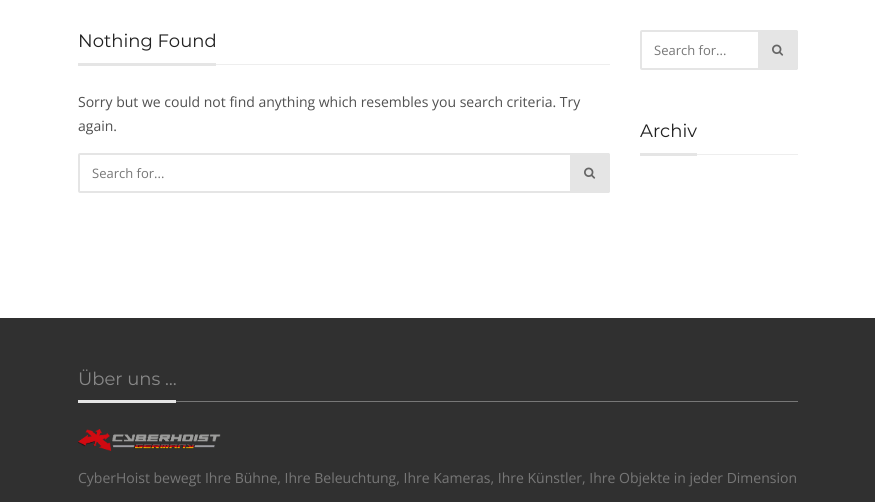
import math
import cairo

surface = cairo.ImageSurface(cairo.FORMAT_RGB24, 875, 502)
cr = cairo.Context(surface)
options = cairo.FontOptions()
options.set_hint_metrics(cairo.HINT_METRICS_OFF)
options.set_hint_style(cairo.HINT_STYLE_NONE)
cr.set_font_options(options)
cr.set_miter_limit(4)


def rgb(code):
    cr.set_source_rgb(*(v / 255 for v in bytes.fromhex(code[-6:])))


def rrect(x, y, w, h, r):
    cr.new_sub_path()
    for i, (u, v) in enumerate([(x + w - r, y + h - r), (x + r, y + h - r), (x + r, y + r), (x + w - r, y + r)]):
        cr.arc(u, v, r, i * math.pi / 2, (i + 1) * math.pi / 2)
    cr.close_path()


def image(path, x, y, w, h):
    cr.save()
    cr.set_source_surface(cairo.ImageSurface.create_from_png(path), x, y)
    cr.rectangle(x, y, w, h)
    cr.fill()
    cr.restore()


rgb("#ffffff")
cr.paint()
rgb("#eeeeee")
cr.rectangle(216, 64, 394, 1)
cr.fill()
rgb("#e5e5e5")
cr.rectangle(78, 63, 138, 3)
cr.fill()
rrect(79, 154, 530, 38, 1)
cr.stroke()
cr.new_path()
cr.move_to(570, 153)
cr.line_to(608, 153)
cr.curve_to(609, 153, 610, 154, 610, 155)
cr.line_to(610, 191)
cr.curve_to(610, 192, 609, 193, 608, 193)
cr.line_to(570, 193)
cr.close_path()
cr.fill()
image("img/1.png", 584, 167, 12, 12)
rrect(641, 31, 156, 38, 1)
cr.stroke()
cr.new_path()
cr.move_to(758, 30)
cr.line_to(796, 30)
cr.curve_to(797, 30, 798, 31, 798, 32)
cr.line_to(798, 68)
cr.curve_to(798, 69, 797, 70, 796, 70)
cr.line_to(758, 70)
cr.close_path()
cr.fill()
image("img/1.png", 772, 44, 12, 12)
for x, y, w, h, color in [
    (697, 154, 101, 1, "#eeeeee"),
    (640, 153, 57, 3, "#e5e5e5"),
    (0, 318, 875, 184, "#303030"),
    (176, 401, 622, 1, "#777777"),
    (78, 400, 98, 3, "#e5e5e5"),
]:
    rgb(color)
    cr.rectangle(x, y, w, h)
    cr.fill()
image("img/2.png", 78, 429, 143, 22)
cr.select_font_face("Montserrat")
cr.set_font_size(18)
rgb("#202020")
cr.move_to(78, 47)
cr.show_text("Nothing Found")
cr.select_font_face("Open Sans")
cr.set_font_size(14)
rgb("#505050")
cr.move_to(78, 107)
cr.show_text("Sorry but we could not find anything which resembles you search criteria. Try")
cr.move_to(78, 131)
cr.show_text("again.")
cr.set_font_size(13)
rgb("#777777")
cr.move_to(92, 178)
cr.show_text("Search for...")
cr.move_to(654, 55)
cr.show_text("Search for...")
cr.select_font_face("Montserrat")
cr.set_font_size(18)
rgb("#202020")
cr.move_to(640, 137)
cr.show_text("Archiv")
rgb("#888888")
cr.move_to(78, 385)
cr.show_text("Über uns …")
cr.select_font_face("Open Sans")
cr.set_font_size(14)
rgb("#777777")
cr.move_to(78, 483)
cr.show_text("CyberHoist bewegt Ihre Bühne, Ihre Beleuchtung, Ihre Kameras, Ihre Künstler, Ihre Objekte in jeder Dimension")
surface.write_to_png("page.png")
